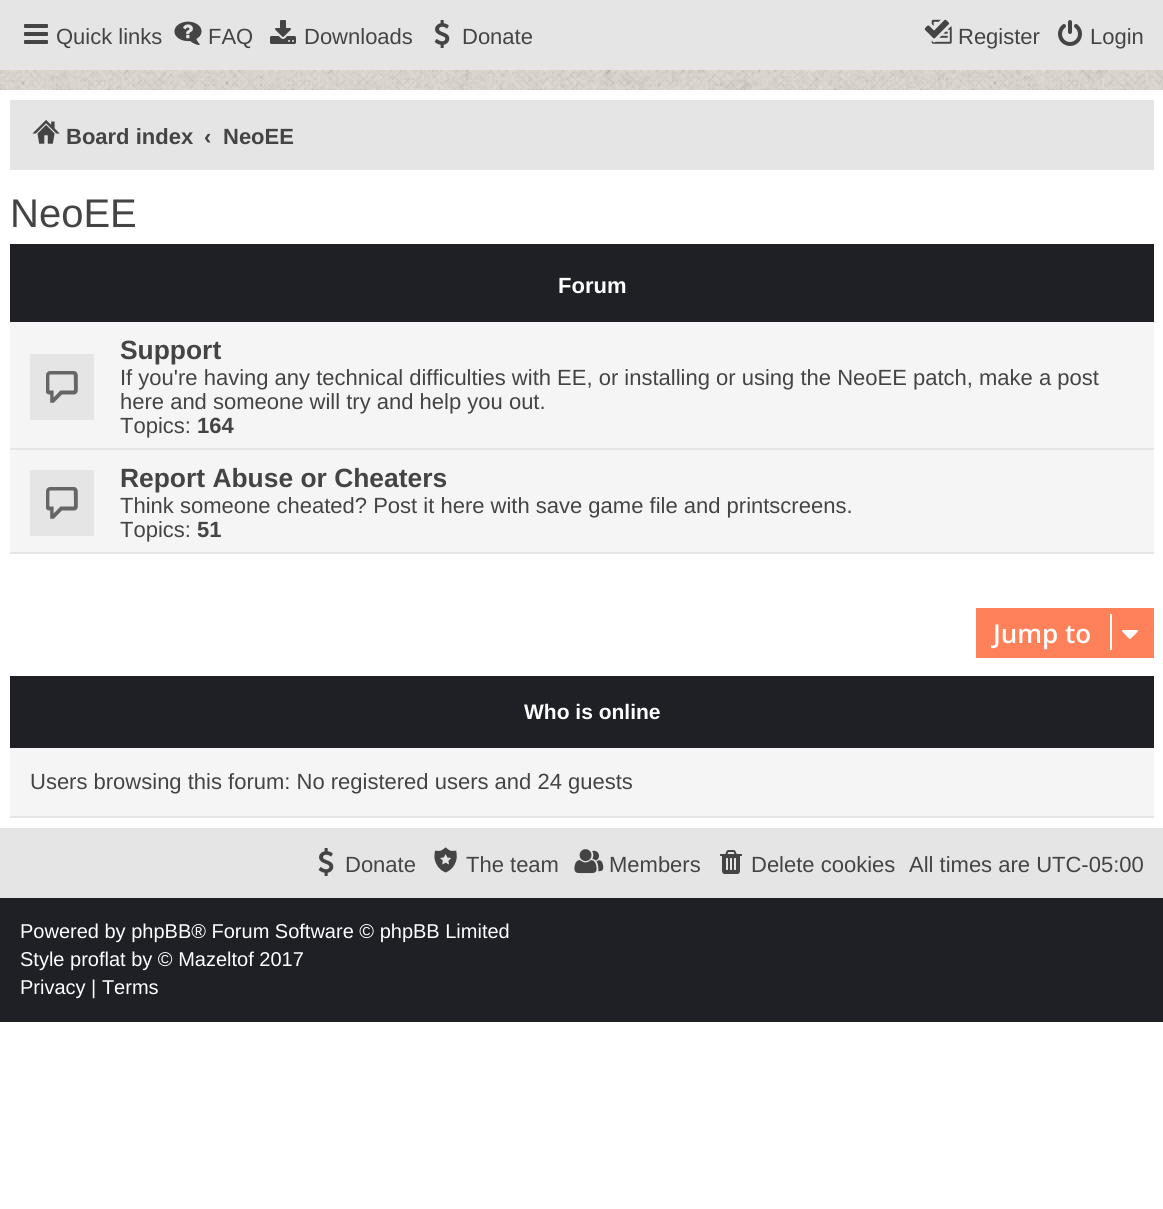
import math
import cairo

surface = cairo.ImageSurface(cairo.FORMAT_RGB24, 1163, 1209)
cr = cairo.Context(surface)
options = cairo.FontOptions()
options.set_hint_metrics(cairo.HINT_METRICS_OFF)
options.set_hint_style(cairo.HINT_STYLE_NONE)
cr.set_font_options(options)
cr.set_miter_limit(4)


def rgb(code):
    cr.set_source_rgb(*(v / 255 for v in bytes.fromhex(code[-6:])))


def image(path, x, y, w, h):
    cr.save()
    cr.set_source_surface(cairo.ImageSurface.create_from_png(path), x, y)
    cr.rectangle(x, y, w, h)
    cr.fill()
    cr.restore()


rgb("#ffffff")
cr.paint()
rgb("#e5e5e5")
cr.rectangle(0, 0, 1163, 70)
cr.fill()
image("img/1.png", 24, 24, 24, 20)
image("img/2.png", 174, 21, 28, 24)
image("img/3.png", 270, 20, 26, 24)
image("img/4.png", 434, 20, 16, 28)
image("img/5.png", 924, 19, 28, 25)
image("img/6.png", 1058, 20, 24, 26)
image("img/7.png", 0, 70, 1163, 20)
cr.rectangle(10, 100, 1144, 70)
cr.fill()
image("img/8.png", 32, 120, 28, 24)
for x, y, w, h, color in [
    (10, 244, 1144, 78, "#1e2025"),
    (10, 322, 1144, 230, "#f5f5f5"),
    (10, 448, 1144, 2, "#e5e5e5"),
    (30, 354, 64, 66, "#e5e5e5"),
]:
    rgb(color)
    cr.rectangle(x, y, w, h)
    cr.fill()
image("img/9.png", 46, 371, 32, 32)
cr.rectangle(10, 552, 1144, 2)
cr.fill()
cr.rectangle(30, 470, 64, 66)
cr.fill()
image("img/10.png", 46, 487, 32, 32)
rgb("#ff8159")
cr.rectangle(976, 608, 178, 50)
cr.fill()
rgb("#ffffff")
cr.rectangle(1110, 614, 2, 36)
cr.fill()
image("img/11.png", 1122, 630, 16, 9)
for x, y, w, h, color in [
    (10, 676, 1144, 72, "#1e2025"),
    (10, 748, 1144, 68, "#f5f5f5"),
    (10, 816, 1144, 2, "#e5e5e5"),
    (0, 828, 1163, 70, "#e5e5e5"),
]:
    rgb(color)
    cr.rectangle(x, y, w, h)
    cr.fill()
image("img/4.png", 318, 848, 16, 28)
image("img/12.png", 434, 847, 23, 26)
image("img/13.png", 574, 849, 30, 25)
image("img/14.png", 720, 850, 22, 24)
rgb("#1e2025")
cr.rectangle(0, 898, 1163, 124)
cr.fill()
cr.select_font_face("Liberation Sans")
cr.set_font_size(22)
rgb("#444444")
for x, y, s in [
    (56, 44, "Quick links"),
    (208, 44, "FAQ"),
    (304, 44, "Downloads"),
    (462, 44, "Donate"),
    (958, 44, "Register"),
    (1090, 44, "Login"),
]:
    cr.move_to(x, y)
    cr.show_text(s)
cr.select_font_face("Liberation Sans", cairo.FONT_SLANT_NORMAL, cairo.FONT_WEIGHT_BOLD)
for x, y, s in [
    (66, 144, "Board index"),
    (204, 144, "‹"),
    (223, 144, "NeoEE"),
]:
    cr.move_to(x, y)
    cr.show_text(s)
cr.select_font_face("Liberation Sans")
cr.set_font_size(40)
cr.move_to(10, 227)
cr.show_text("NeoEE")
cr.select_font_face("Liberation Sans", cairo.FONT_SLANT_NORMAL, cairo.FONT_WEIGHT_BOLD)
cr.set_font_size(22)
rgb("#ffffff")
cr.move_to(558, 293)
cr.show_text("Forum")
cr.set_font_size(26.4)
rgb("#444444")
cr.move_to(120, 359)
cr.show_text("Support")
cr.select_font_face("Liberation Sans")
cr.set_font_size(22)
for x, y, s in [
    (120, 385, "If you're having any technical difficulties with EE, or installing or using the NeoEE patch, make a post"),
    (120, 409, "here and someone will try and help you out."),
    (120, 433, "Topics:"),
]:
    cr.move_to(x, y)
    cr.show_text(s)
cr.select_font_face("Liberation Sans", cairo.FONT_SLANT_NORMAL, cairo.FONT_WEIGHT_BOLD)
cr.move_to(197, 433)
cr.show_text("164")
cr.set_font_size(26.4)
cr.move_to(120, 487)
cr.show_text("Report Abuse or Cheaters")
cr.select_font_face("Liberation Sans")
cr.set_font_size(22)
cr.move_to(120, 513)
cr.show_text("Think someone cheated? Post it here with save game file and printscreens.")
cr.move_to(120, 537)
cr.show_text("Topics:")
cr.select_font_face("Liberation Sans", cairo.FONT_SLANT_NORMAL, cairo.FONT_WEIGHT_BOLD)
cr.move_to(197, 537)
cr.show_text("51")
cr.select_font_face("Open Sans SemiBold")
cr.set_font_size(26)
rgb("#ffffff")
cr.move_to(993, 643)
cr.show_text("Jump to")
cr.select_font_face("Liberation Sans", cairo.FONT_SLANT_NORMAL, cairo.FONT_WEIGHT_BOLD)
cr.set_font_size(21)
cr.move_to(524, 719)
cr.show_text("Who is online")
cr.select_font_face("Liberation Sans")
cr.set_font_size(22)
rgb("#444444")
for x, y, s in [
    (30, 789, "Users browsing this forum: No registered users and 24 guests"),
    (345, 872, "Donate"),
    (466, 872, "The team"),
    (609, 872, "Members"),
    (751, 872, "Delete cookies"),
    (909, 872, "All times are UTC-05:00"),
]:
    cr.move_to(x, y)
    cr.show_text(s)
cr.set_font_size(20)
rgb("#ffffff")
for x, y, s in [
    (20, 938, "Powered by phpBB® Forum Software © phpBB Limited"),
    (20, 966, "Style proflat by © Mazeltof 2017"),
    (20, 994, "Privacy | Terms"),
]:
    cr.move_to(x, y)
    cr.show_text(s)
surface.write_to_png("page.png")
